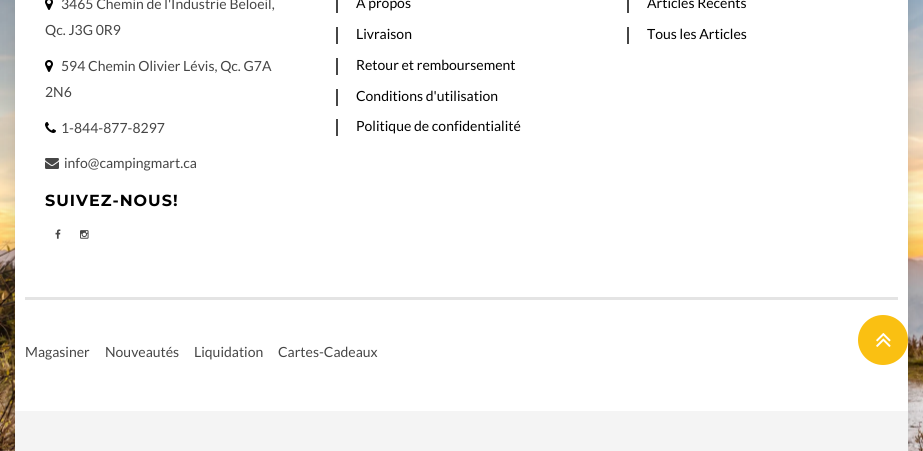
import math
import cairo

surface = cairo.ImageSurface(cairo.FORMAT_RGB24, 923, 451)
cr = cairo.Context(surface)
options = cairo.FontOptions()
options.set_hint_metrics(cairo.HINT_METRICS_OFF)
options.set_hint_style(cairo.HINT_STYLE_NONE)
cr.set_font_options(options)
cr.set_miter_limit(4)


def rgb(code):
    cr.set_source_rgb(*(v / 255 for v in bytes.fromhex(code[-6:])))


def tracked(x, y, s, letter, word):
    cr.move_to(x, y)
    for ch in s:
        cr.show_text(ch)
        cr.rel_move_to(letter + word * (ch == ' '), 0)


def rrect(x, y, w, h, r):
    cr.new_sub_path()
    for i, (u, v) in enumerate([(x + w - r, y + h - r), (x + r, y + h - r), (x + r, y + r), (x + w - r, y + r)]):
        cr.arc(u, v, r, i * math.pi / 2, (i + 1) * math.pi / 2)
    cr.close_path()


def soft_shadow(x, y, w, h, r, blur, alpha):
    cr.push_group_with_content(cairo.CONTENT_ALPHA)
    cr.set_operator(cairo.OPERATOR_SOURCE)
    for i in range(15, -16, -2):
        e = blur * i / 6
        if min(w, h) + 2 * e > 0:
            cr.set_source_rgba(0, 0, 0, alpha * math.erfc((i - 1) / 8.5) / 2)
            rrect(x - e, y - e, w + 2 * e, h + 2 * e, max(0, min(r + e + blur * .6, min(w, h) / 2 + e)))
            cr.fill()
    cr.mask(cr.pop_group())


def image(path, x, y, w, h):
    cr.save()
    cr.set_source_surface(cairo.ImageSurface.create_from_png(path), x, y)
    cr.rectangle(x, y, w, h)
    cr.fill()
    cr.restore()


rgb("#ffffff")
cr.paint()
image("img/1.png", 0, 0, 923, 451)
rgb("#000000")
soft_shadow(13, -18, 897, 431, 0, 6, 0.1)
rgb("#ffffff")
cr.rectangle(15, 0, 893, 411)
cr.fill()
image("img/2.png", 45, 0, 8, 10)
image("img/3.png", 45, 60, 8, 12)
image("img/4.png", 45, 122, 11, 11)
image("img/5.png", 45, 158, 14, 11)
image("img/6.png", 55, 229, 6, 10)
image("img/7.png", 80, 230, 9, 9)
for x, y, w, h, color in [
    (336, 0, 2, 13, "#464646"),
    (336, 27, 2, 17, "#464646"),
    (336, 58, 2, 17, "#464646"),
    (336, 89, 2, 17, "#464646"),
    (336, 119, 2, 17, "#464646"),
    (627, 0, 2, 13, "#464646"),
    (627, 27, 2, 17, "#464646"),
    (25, 297, 873, 3, "#e4e4e4"),
    (15, 411, 893, 40, "#f4f4f4"),
]:
    rgb(color)
    cr.rectangle(x, y, w, h)
    cr.fill()
rgb("#fac012")
cr.arc(883, 340, 25, 0, 2 * math.pi)
cr.fill()
image("img/8.png", 876, 333, 15, 14)
cr.select_font_face("Lato")
cr.set_font_size(14)
rgb("#464646")
for x, y, s in [
    (61, 9, "3465 Chemin de l'Industrie Beloeil,"),
    (45, 35, "Qc. J3G 0R9"),
    (61, 71, "594 Chemin Olivier Lévis, Qc. G7A"),
    (45, 97, "2N6"),
    (61, 133, "1-844-877-8297"),
    (64, 168, "info@campingmart.ca"),
]:
    cr.move_to(x, y)
    cr.show_text(s)
cr.select_font_face("Montserrat", cairo.FONT_SLANT_NORMAL, cairo.FONT_WEIGHT_BOLD)
cr.set_font_size(16)
rgb("#000000")
tracked(45, 206, "SUIVEZ-NOUS!", 1, 0)
cr.select_font_face("Lato")
cr.set_font_size(14)
for x, y, s in [
    (356, 8, "À propos"),
    (356, 39, "Livraison"),
    (356, 70, "Retour et remboursement"),
    (356, 101, "Conditions d'utilisation"),
    (356, 131, "Politique de confidentialité"),
    (647, 8, "Articles Récents"),
    (647, 39, "Tous les Articles"),
]:
    cr.move_to(x, y)
    cr.show_text(s)
rgb("#464646")
for x, y, s in [
    (25, 357, "Magasiner"),
    (105, 357, "Nouveautés"),
    (194, 357, "Liquidation"),
    (278, 357, "Cartes-Cadeaux"),
]:
    cr.move_to(x, y)
    cr.show_text(s)
surface.write_to_png("page.png")
